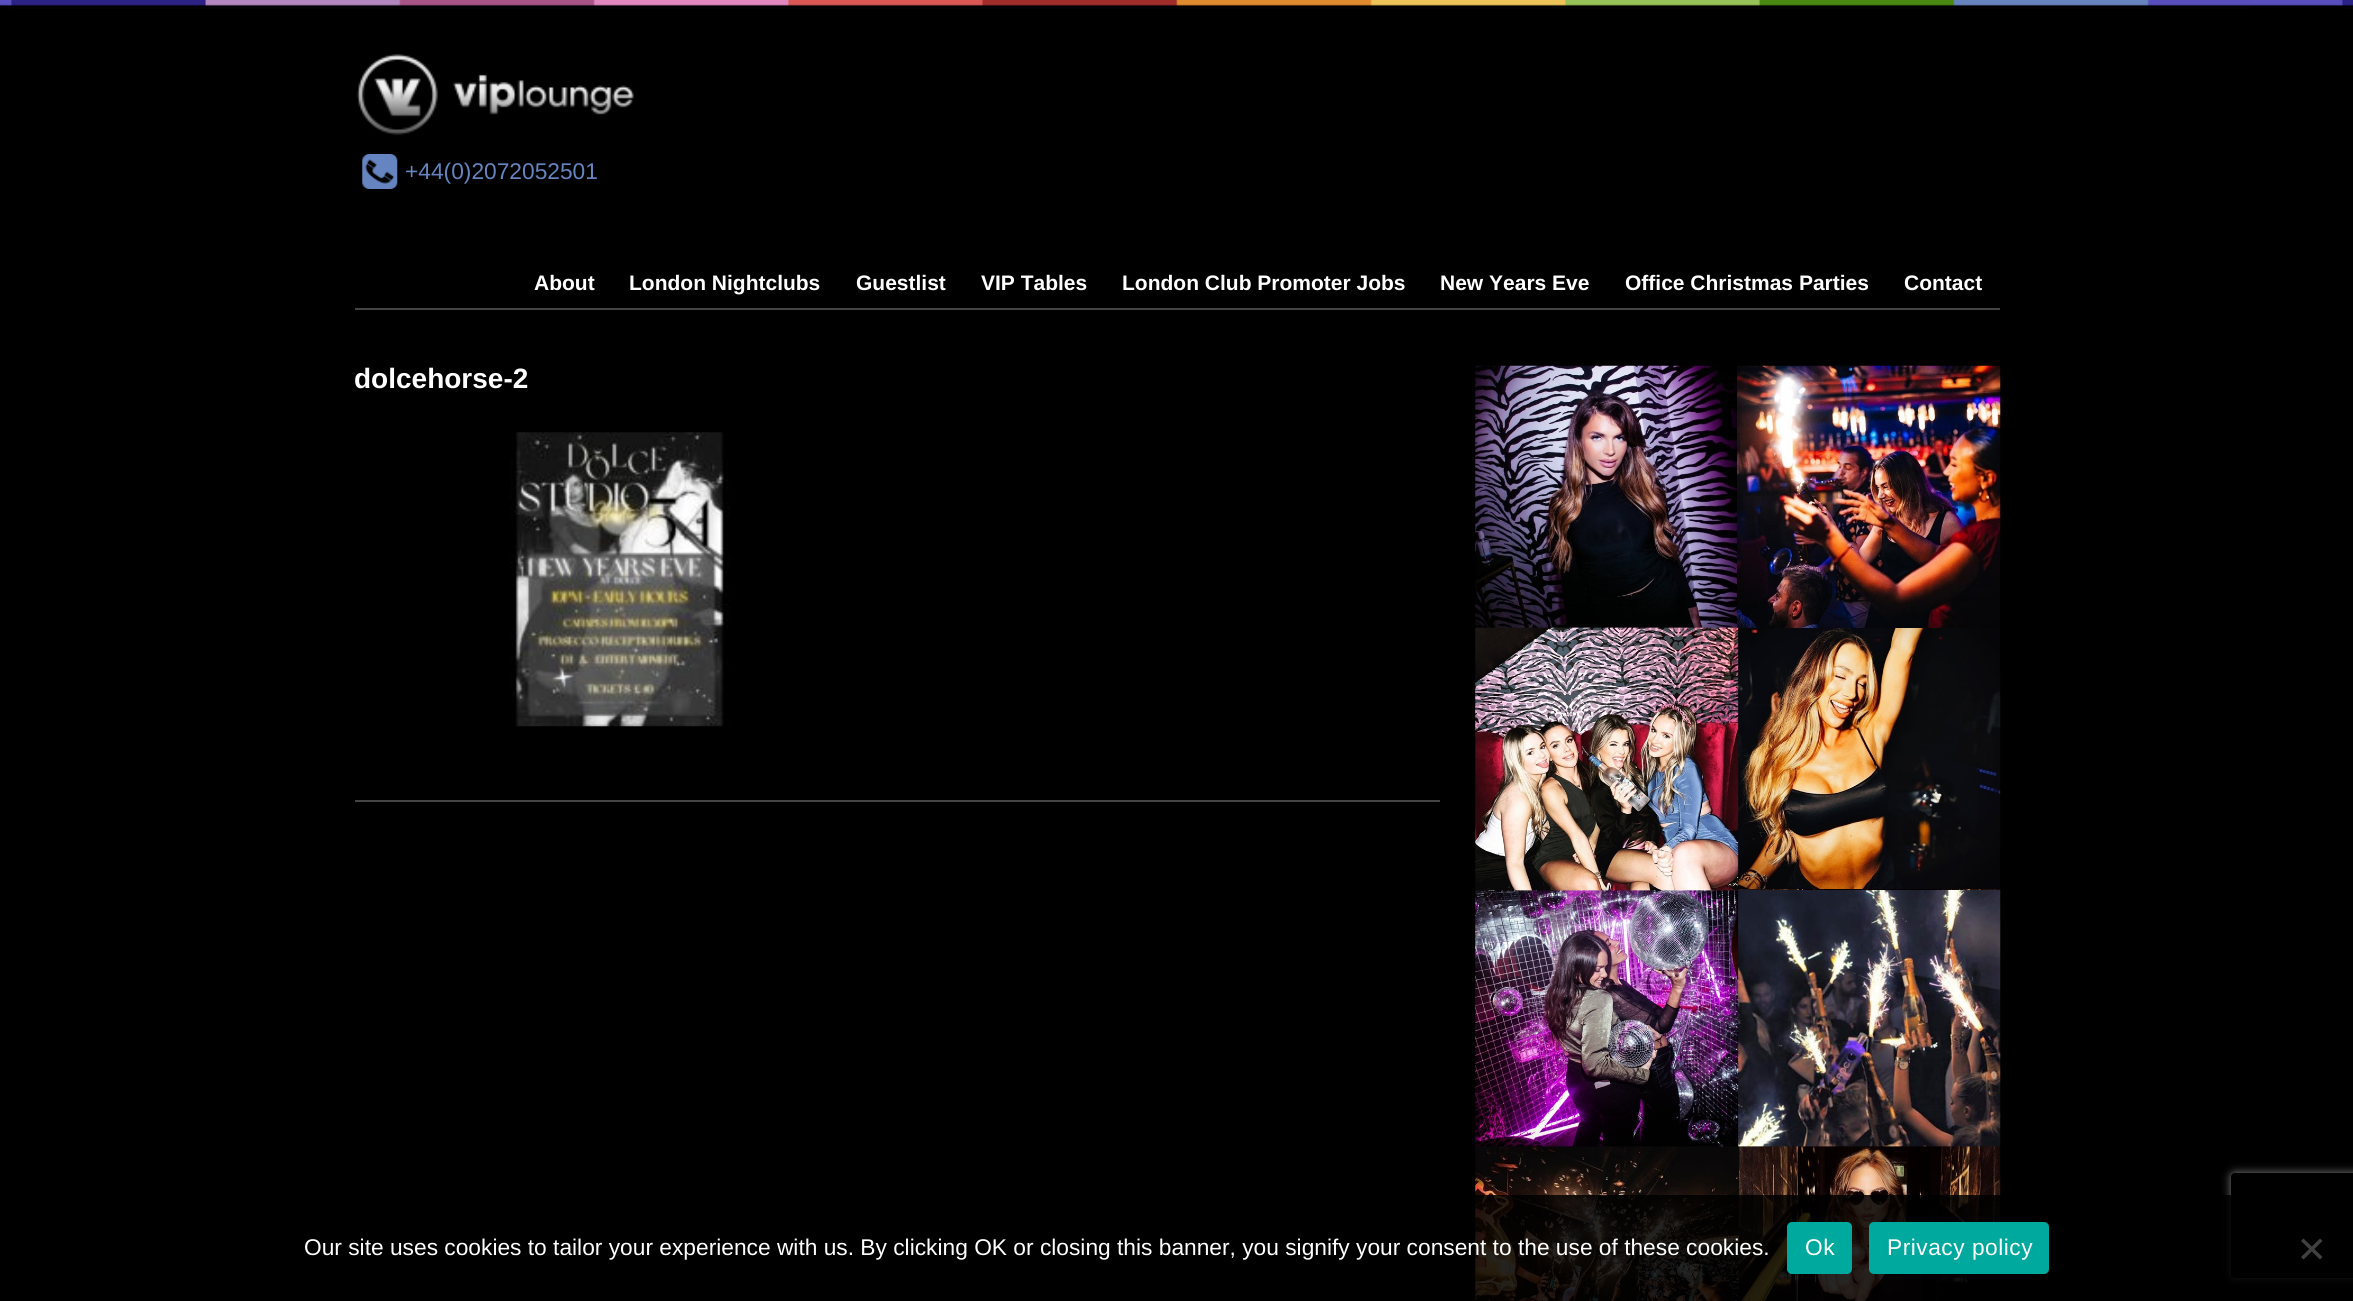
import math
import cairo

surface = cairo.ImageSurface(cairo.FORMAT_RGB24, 2353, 1301)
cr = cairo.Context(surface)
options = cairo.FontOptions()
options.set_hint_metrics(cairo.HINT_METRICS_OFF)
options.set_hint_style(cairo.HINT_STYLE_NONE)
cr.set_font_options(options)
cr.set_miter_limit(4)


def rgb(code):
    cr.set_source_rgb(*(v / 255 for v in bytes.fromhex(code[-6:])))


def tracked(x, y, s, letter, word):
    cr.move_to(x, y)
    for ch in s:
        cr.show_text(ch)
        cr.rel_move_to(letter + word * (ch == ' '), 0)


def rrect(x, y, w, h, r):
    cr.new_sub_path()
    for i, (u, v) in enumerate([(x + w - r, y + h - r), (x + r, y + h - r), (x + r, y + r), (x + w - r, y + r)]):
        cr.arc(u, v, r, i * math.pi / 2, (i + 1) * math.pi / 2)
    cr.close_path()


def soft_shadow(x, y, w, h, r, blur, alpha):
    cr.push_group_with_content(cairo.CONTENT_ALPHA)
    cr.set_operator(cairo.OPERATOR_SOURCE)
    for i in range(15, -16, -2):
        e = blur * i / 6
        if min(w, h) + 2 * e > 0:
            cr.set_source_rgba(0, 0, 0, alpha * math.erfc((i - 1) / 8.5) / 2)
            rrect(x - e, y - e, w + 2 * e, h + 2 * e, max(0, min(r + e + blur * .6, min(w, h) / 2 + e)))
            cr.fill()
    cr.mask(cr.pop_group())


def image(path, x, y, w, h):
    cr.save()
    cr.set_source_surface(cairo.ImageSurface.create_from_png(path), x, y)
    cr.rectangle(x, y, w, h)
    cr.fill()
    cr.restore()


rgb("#000000")
cr.paint()
image("img/1.png", 0, 0, 2353, 9)
rgb("#444444")
cr.rectangle(355, 308, 1645, 2)
cr.fill()
image("img/2.png", 356, 54, 278, 82)
image("img/3.png", 362, 154, 36, 35)
cr.rectangle(355, 800, 1085, 2)
cr.fill()
image("img/4.png", 510, 432, 221, 295)
image("img/5.png", 1475, 365, 526, 936)
cr.save()
cr.set_fill_rule(cairo.FILL_RULE_EVEN_ODD)
cr.new_path()
cr.move_to(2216, 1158)
cr.line_to(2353, 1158)
cr.line_to(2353, 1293)
cr.line_to(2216, 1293)
cr.close_path()
cr.move_to(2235, 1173)
cr.line_to(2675, 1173)
cr.curve_to(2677, 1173, 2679, 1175, 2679, 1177)
cr.line_to(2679, 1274)
cr.curve_to(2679, 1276, 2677, 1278, 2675, 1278)
cr.line_to(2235, 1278)
cr.curve_to(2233, 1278, 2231, 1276, 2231, 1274)
cr.line_to(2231, 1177)
cr.curve_to(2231, 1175, 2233, 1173, 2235, 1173)
cr.close_path()
cr.clip()
rgb("#808080")
soft_shadow(2231, 1173, 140, 105, 4, 4.5, 1)
cr.restore()
cr.set_source_rgba(0, 0, 0, 0.85)
cr.rectangle(1475, 1195, 878, 106)
cr.fill()
rgb("#00a99d")
rrect(1787, 1222, 65, 52, 5)
cr.fill()
rrect(1869, 1222, 180, 52, 5)
cr.fill()
rgb("#404040")
cr.new_path()
cr.move_to(2320, 1238.5)
cr.line_to(2322.5, 1241)
cr.line_to(2303.5, 1259.5)
cr.line_to(2301, 1257)
cr.close_path()
cr.fill()
cr.new_path()
cr.move_to(2301, 1241)
cr.line_to(2303.5, 1238.5)
cr.line_to(2322.5, 1257)
cr.line_to(2320, 1259.5)
cr.close_path()
cr.fill()
cr.select_font_face("Liberation Sans")
cr.set_font_size(22.75)
rgb("#6684bf")
cr.move_to(405, 179)
cr.show_text("+44(0)2072052501")
cr.select_font_face("Liberation Sans", cairo.FONT_SLANT_NORMAL, cairo.FONT_WEIGHT_BOLD)
cr.set_font_size(21)
rgb("#ffffff")
for x, y, s in [
    (534, 290, "About"),
    (629, 290, "London Nightclubs"),
    (856, 290, "Guestlist"),
    (981, 290, "VIP Tables"),
    (1122, 290, "London Club Promoter Jobs"),
    (1440, 290, "New Years Eve"),
    (1625, 290, "Office Christmas Parties"),
    (1904, 290, "Contact"),
]:
    cr.move_to(x, y)
    cr.show_text(s)
cr.set_font_size(28)
cr.move_to(354, 388)
cr.show_text("dolcehorse-2")
cr.select_font_face("Liberation Sans")
cr.set_font_size(22.75)
cr.move_to(304, 1255)
cr.show_text("Our site uses cookies to tailor your experience with us. By clicking OK or closing this banner, you signify your consent to the use of these cookies.")
tracked(1805, 1255, "Ok", 0.5, 0)
tracked(1887, 1255, "Privacy policy", 0.5, 0)
surface.write_to_png("page.png")
